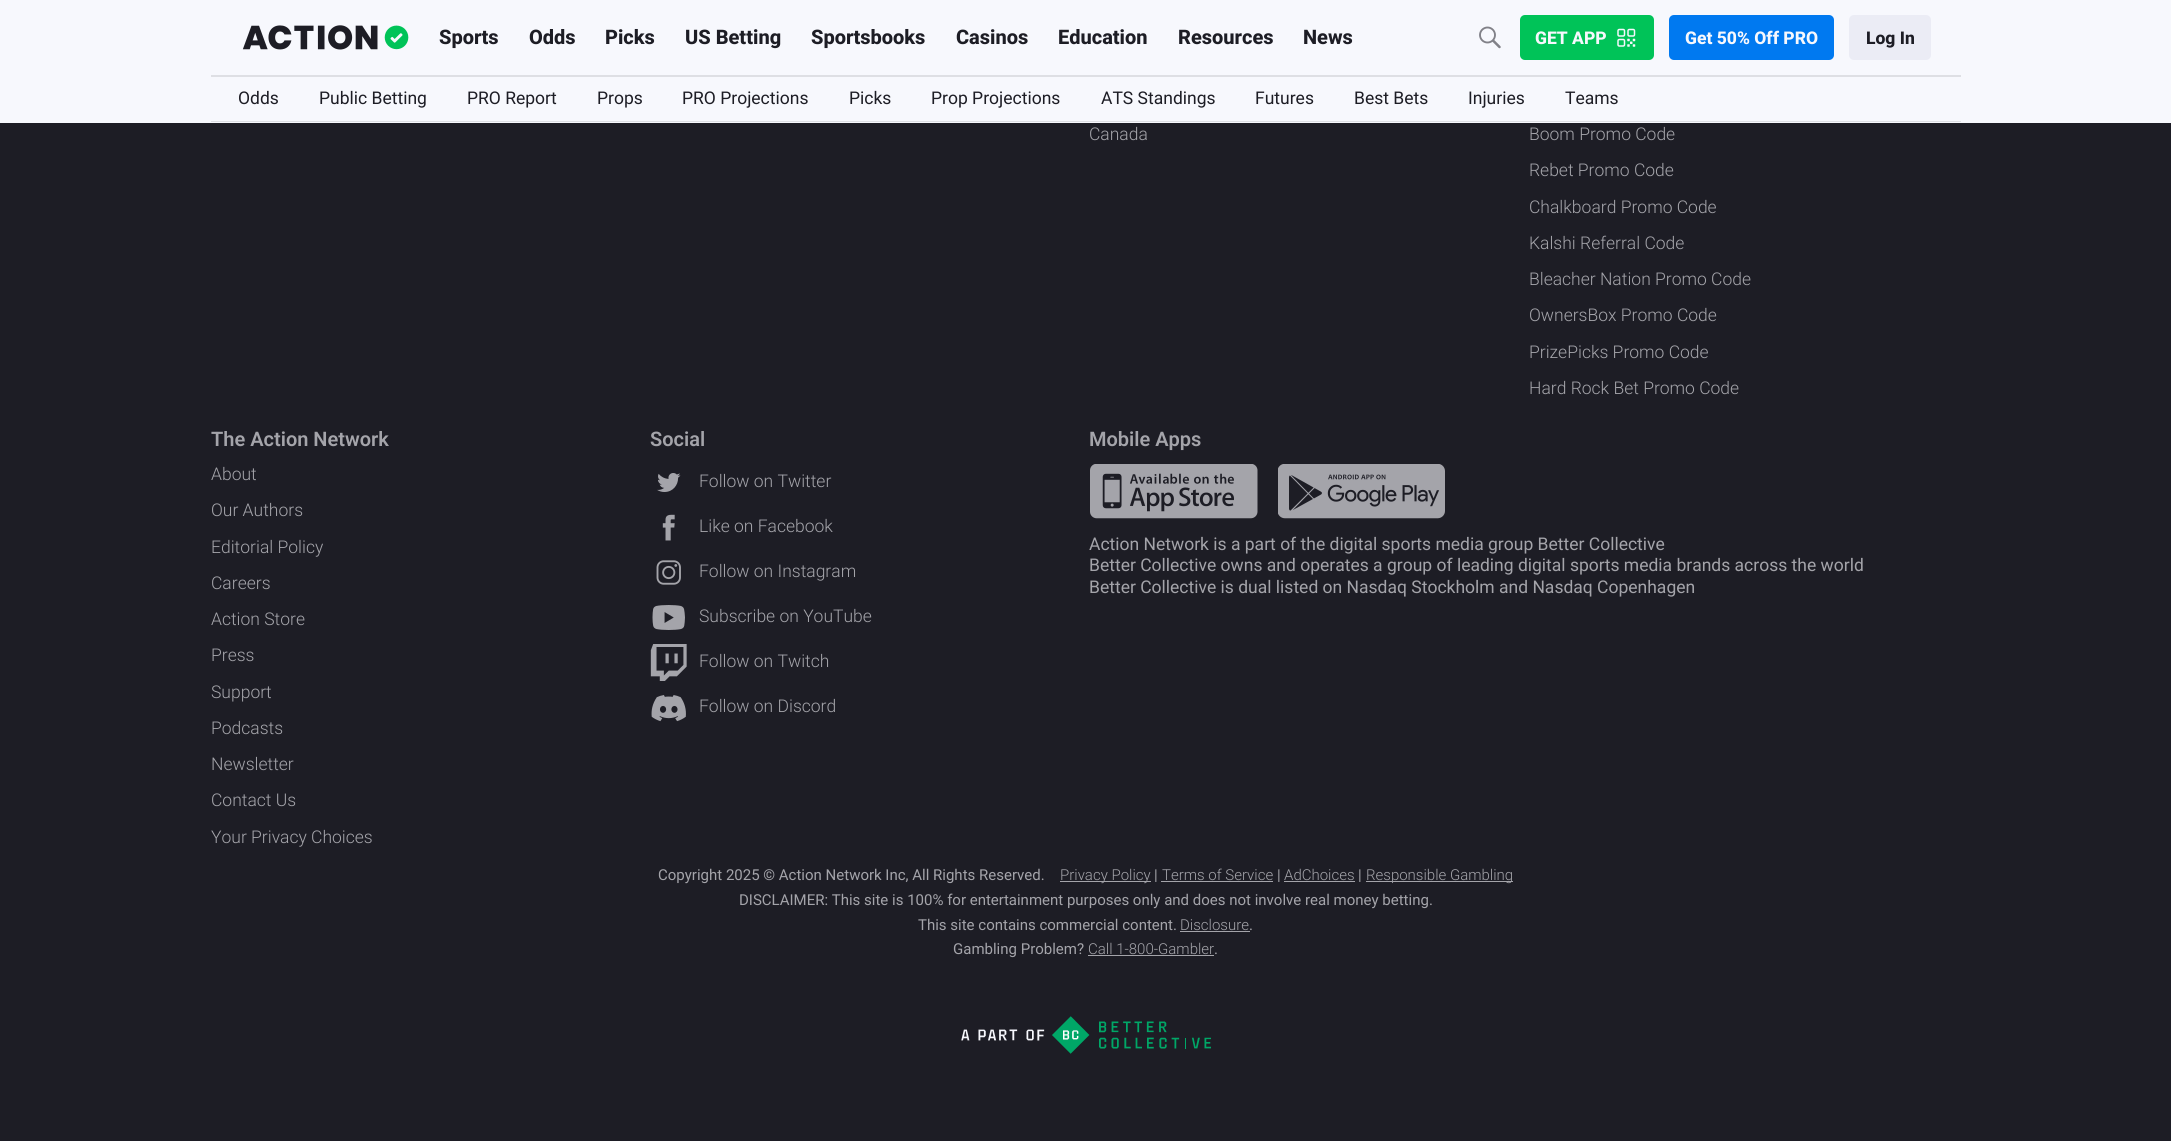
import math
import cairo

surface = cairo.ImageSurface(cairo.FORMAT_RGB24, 2171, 1141)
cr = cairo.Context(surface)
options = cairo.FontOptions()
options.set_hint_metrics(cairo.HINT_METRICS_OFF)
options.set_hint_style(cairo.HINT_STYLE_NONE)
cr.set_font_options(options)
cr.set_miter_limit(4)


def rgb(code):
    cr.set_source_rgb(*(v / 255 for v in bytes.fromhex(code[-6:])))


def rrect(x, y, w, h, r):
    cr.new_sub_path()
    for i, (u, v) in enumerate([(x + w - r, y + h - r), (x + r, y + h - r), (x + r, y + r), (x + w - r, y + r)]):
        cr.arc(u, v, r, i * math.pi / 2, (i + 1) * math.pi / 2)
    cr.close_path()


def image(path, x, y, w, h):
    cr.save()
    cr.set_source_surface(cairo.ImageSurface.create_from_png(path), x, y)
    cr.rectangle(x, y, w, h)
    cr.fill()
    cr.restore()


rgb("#1d1d25")
cr.paint()
rgb("#f7f8fd")
cr.rectangle(0, 0, 2171, 123)
cr.fill()
rgb("#dedfe4")
cr.rectangle(211, 75, 1750, 2)
cr.fill()
image("img/1.png", 242, 25, 167, 25)
image("img/2.png", 1479, 26, 22, 23)
rgb("#00c358")
rrect(1520, 15, 134, 45, 5)
cr.fill()
image("img/3.png", 1617, 28, 19, 19)
rgb("#0079f0")
rrect(1669, 15, 165, 45, 5)
cr.fill()
rgb("#ebecf5")
rrect(1849, 15, 82, 45, 5)
cr.fill()
rgb("#dedfe4")
cr.rectangle(211, 121, 1750, 1)
cr.fill()
image("img/4.png", 657, 473, 24, 19)
image("img/5.png", 662, 514, 13, 27)
image("img/6.png", 656, 560, 25, 25)
image("img/7.png", 652, 605, 33, 25)
image("img/8.png", 650, 644, 37, 37)
image("img/9.png", 651, 695, 35, 27)
image("img/10.png", 1090, 464, 168, 55)
image("img/11.png", 1278, 464, 167, 55)
for x, y, w, h, color in [
    (1060, 881, 91, 1, "#a4a4aa"),
    (1161, 881, 112, 1, "#a4a4aa"),
    (1284, 881, 71, 1, "#a4a4aa"),
    (1366, 881, 147, 1, "#a4a4aa"),
    (1180, 931, 70, 1, "#a4a4aa"),
    (1088, 955, 126, 1, "#a4a4aa"),
]:
    rgb(color)
    cr.rectangle(x, y, w, h)
    cr.fill()
image("img/12.png", 961, 1016, 250, 38)
cr.select_font_face("Roboto ExtraBold")
cr.set_font_size(20)
rgb("#1d1d25")
for x, y, s in [
    (439, 44, "Sports"),
    (529, 44, "Odds"),
    (605, 44, "Picks"),
    (685, 44, "US Betting"),
    (811, 44, "Sportsbooks"),
    (956, 44, "Casinos"),
    (1058, 44, "Education"),
    (1178, 44, "Resources"),
    (1303, 44, "News"),
]:
    cr.move_to(x, y)
    cr.show_text(s)
cr.set_font_size(17.5)
rgb("#f7f8fd")
cr.move_to(1535, 44)
cr.show_text("GET APP")
cr.move_to(1685, 44)
cr.show_text("Get 50% Off PRO")
rgb("#1d1d25")
cr.move_to(1866, 44)
cr.show_text("Log In")
cr.select_font_face("Roboto")
for x, y, s in [
    (238, 104, "Odds"),
    (319, 104, "Public Betting"),
    (467, 104, "PRO Report"),
    (597, 104, "Props"),
    (682, 104, "PRO Projections"),
    (849, 104, "Picks"),
    (931, 104, "Prop Projections"),
    (1101, 104, "ATS Standings"),
    (1255, 104, "Futures"),
    (1354, 104, "Best Bets"),
    (1468, 104, "Injuries"),
    (1565, 104, "Teams"),
]:
    cr.move_to(x, y)
    cr.show_text(s)
cr.select_font_face("Roboto Light")
rgb("#a4a4aa")
for x, y, s in [
    (1089, 140, "Canada"),
    (1529, 140, "Boom Promo Code"),
    (1529, 176, "Rebet Promo Code"),
    (1529, 213, "Chalkboard Promo Code"),
    (1529, 249, "Kalshi Referral Code"),
    (1529, 285, "Bleacher Nation Promo Code"),
    (1529, 321, "OwnersBox Promo Code"),
    (1529, 358, "PrizePicks Promo Code"),
    (1529, 394, "Hard Rock Bet Promo Code"),
]:
    cr.move_to(x, y)
    cr.show_text(s)
cr.select_font_face("Roboto SemiBold")
cr.set_font_size(20)
cr.move_to(211, 446)
cr.show_text("The Action Network")
cr.select_font_face("Roboto Light")
cr.set_font_size(17.5)
for x, y, s in [
    (211, 480, "About"),
    (211, 516, "Our Authors"),
    (211, 553, "Editorial Policy"),
    (211, 589, "Careers"),
    (211, 625, "Action Store"),
    (211, 661, "Press"),
    (211, 698, "Support"),
    (211, 734, "Podcasts"),
    (211, 770, "Newsletter"),
    (211, 806, "Contact Us"),
    (211, 843, "Your Privacy Choices"),
]:
    cr.move_to(x, y)
    cr.show_text(s)
cr.select_font_face("Roboto SemiBold")
cr.set_font_size(20)
cr.move_to(650, 446)
cr.show_text("Social")
cr.select_font_face("Roboto Light")
cr.set_font_size(17.5)
for x, y, s in [
    (699, 487, "Follow on Twitter"),
    (699, 532, "Like on Facebook"),
    (699, 577, "Follow on Instagram"),
    (699, 622, "Subscribe on YouTube"),
    (699, 667, "Follow on Twitch"),
    (699, 712, "Follow on Discord"),
]:
    cr.move_to(x, y)
    cr.show_text(s)
cr.select_font_face("Roboto SemiBold")
cr.set_font_size(20)
cr.move_to(1089, 446)
cr.show_text("Mobile Apps")
cr.select_font_face("Roboto")
cr.set_font_size(17.5)
for x, y, s in [
    (1089, 550, "Action Network is a part of the digital sports media group Better Collective"),
    (1089, 571, "Better Collective owns and operates a group of leading digital sports media brands across the world"),
    (1089, 593, "Better Collective is dual listed on Nasdaq Stockholm and Nasdaq Copenhagen"),
]:
    cr.move_to(x, y)
    cr.show_text(s)
cr.set_font_size(15)
cr.move_to(658, 880)
cr.show_text("Copyright 2025 © Action Network Inc, All Rights Reserved.")
cr.select_font_face("Roboto Light")
cr.move_to(1060, 880)
cr.show_text("Privacy Policy")
cr.select_font_face("Roboto")
cr.move_to(1154, 880)
cr.show_text("|")
cr.select_font_face("Roboto Light")
cr.move_to(1162, 880)
cr.show_text("Terms of Service")
cr.select_font_face("Roboto")
cr.move_to(1277, 880)
cr.show_text("|")
cr.select_font_face("Roboto Light")
cr.move_to(1284, 880)
cr.show_text("AdChoices")
cr.select_font_face("Roboto")
cr.move_to(1358, 880)
cr.show_text("|")
cr.select_font_face("Roboto Light")
cr.move_to(1366, 880)
cr.show_text("Responsible Gambling")
cr.select_font_face("Roboto")
cr.move_to(739, 905)
cr.show_text("DISCLAIMER: This site is 100% for entertainment purposes only and does not involve real money betting.")
cr.move_to(918, 930)
cr.show_text("This site contains commercial content.")
cr.select_font_face("Roboto Light")
cr.move_to(1180, 930)
cr.show_text("Disclosure")
cr.select_font_face("Roboto")
cr.move_to(1249, 930)
cr.show_text(".")
cr.move_to(953, 954)
cr.show_text("Gambling Problem?")
cr.select_font_face("Roboto Light")
cr.move_to(1088, 954)
cr.show_text("Call 1-800-Gambler")
cr.select_font_face("Roboto")
cr.move_to(1214, 954)
cr.show_text(".")
surface.write_to_png("page.png")
